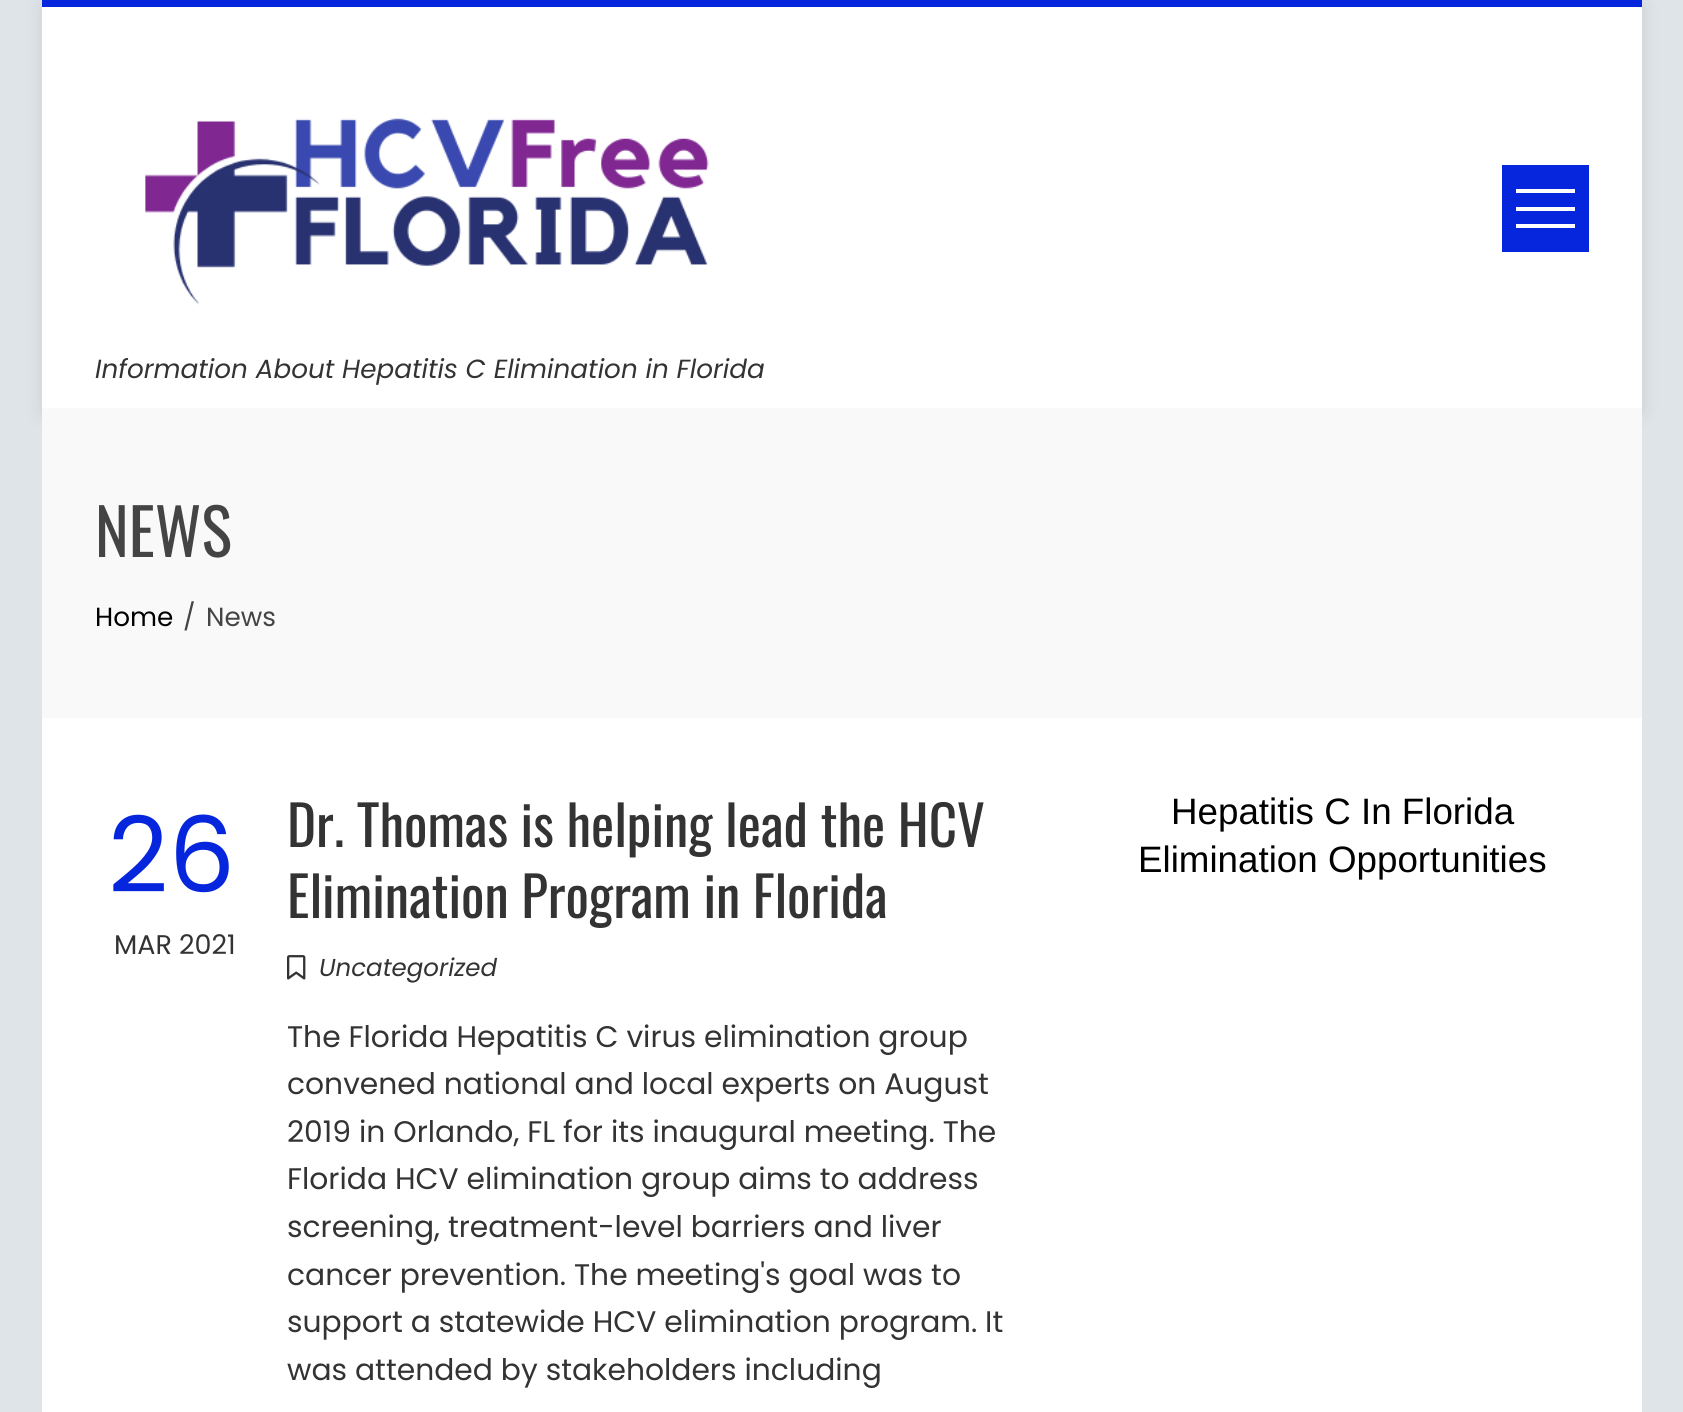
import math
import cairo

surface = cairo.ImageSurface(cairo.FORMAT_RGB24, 1683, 1412)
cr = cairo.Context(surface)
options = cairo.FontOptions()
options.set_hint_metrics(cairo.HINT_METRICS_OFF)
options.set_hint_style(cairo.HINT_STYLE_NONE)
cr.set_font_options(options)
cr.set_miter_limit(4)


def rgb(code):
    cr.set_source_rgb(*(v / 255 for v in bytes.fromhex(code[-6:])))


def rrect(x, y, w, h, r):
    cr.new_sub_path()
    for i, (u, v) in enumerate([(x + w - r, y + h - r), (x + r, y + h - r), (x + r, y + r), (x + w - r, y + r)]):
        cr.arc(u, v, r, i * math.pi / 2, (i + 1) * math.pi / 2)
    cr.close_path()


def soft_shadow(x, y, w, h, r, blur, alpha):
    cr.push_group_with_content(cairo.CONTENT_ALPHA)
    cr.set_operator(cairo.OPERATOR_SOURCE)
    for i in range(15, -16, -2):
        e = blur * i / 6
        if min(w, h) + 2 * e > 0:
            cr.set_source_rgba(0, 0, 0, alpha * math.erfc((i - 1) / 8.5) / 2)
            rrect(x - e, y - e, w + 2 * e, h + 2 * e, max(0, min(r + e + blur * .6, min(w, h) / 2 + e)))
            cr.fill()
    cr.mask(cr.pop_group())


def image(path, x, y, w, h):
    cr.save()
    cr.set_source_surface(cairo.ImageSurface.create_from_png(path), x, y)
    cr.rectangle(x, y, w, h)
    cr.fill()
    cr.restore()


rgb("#dee4e8")
cr.paint()
rgb("#ffffff")
cr.rectangle(42, 718, 1600, 694)
cr.fill()
rgb("#000000")
soft_shadow(42, 5, 1600, 408, 0, 9, 0.1)
for x, y, w, h, color in [
    (42, 7, 1600, 401, "#ffffff"),
    (42, 0, 1600, 7, "#0626dd"),
    (1502, 165, 87, 87, "#0626dd"),
    (1516, 189, 59, 4, "#ffffff"),
    (1516, 224, 59, 4, "#ffffff"),
    (1516, 207, 59, 4, "#ffffff"),
]:
    rgb(color)
    cr.rectangle(x, y, w, h)
    cr.fill()
image("img/1.png", 145, 118, 564, 187)
rgb("#f9f9f9")
cr.rectangle(42, 408, 1600, 310)
cr.fill()
image("img/2.png", 287, 955, 19, 25)
cr.select_font_face("Poppins", cairo.FONT_SLANT_ITALIC)
cr.set_font_size(26.25)
rgb("#333333")
cr.move_to(95, 378)
cr.show_text("Information About Hepatitis C Elimination in Florida")
cr.select_font_face("Oswald")
cr.set_font_size(64)
rgb("#444444")
cr.move_to(95, 557)
cr.show_text("NEWS")
cr.select_font_face("Poppins")
cr.set_font_size(26.25)
rgb("#000000")
cr.move_to(95, 626)
cr.show_text("Home")
rgb("#444444")
cr.move_to(183, 626)
cr.show_text("/")
cr.move_to(206, 626)
cr.show_text("News")
cr.set_font_size(105)
rgb("#0626dd")
cr.move_to(108, 892)
cr.show_text("26")
cr.set_font_size(27)
rgb("#333333")
cr.move_to(114, 954)
cr.show_text("MAR 2021")
cr.select_font_face("Oswald")
cr.set_font_size(55.1)
cr.move_to(287, 847)
cr.show_text("Dr. Thomas is helping lead the HCV")
cr.move_to(287, 918)
cr.show_text("Elimination Program in Florida")
cr.select_font_face("Poppins", cairo.FONT_SLANT_ITALIC)
cr.set_font_size(24.5)
cr.move_to(319, 976)
cr.show_text("Uncategorized")
cr.select_font_face("Poppins")
cr.set_font_size(29.75)
for x, y, s in [
    (287, 1047, "The Florida Hepatitis C virus elimination group"),
    (287, 1094, "convened national and local experts on August"),
    (287, 1142, "2019 in Orlando, FL for its inaugural meeting. The"),
    (287, 1189, "Florida HCV elimination group aims to address"),
    (287, 1237, "screening, treatment-level barriers and liver"),
    (287, 1285, "cancer prevention. The meeting's goal was to"),
    (287, 1332, "support a statewide HCV elimination program. It"),
    (287, 1380, "was attended by stakeholders including"),
]:
    cr.move_to(x, y)
    cr.show_text(s)
cr.select_font_face("Liberation Sans")
cr.set_font_size(36.75)
rgb("#000000")
cr.move_to(1171, 824)
cr.show_text("Hepatitis C In Florida")
cr.move_to(1138, 872)
cr.show_text("Elimination Opportunities")
surface.write_to_png("page.png")
